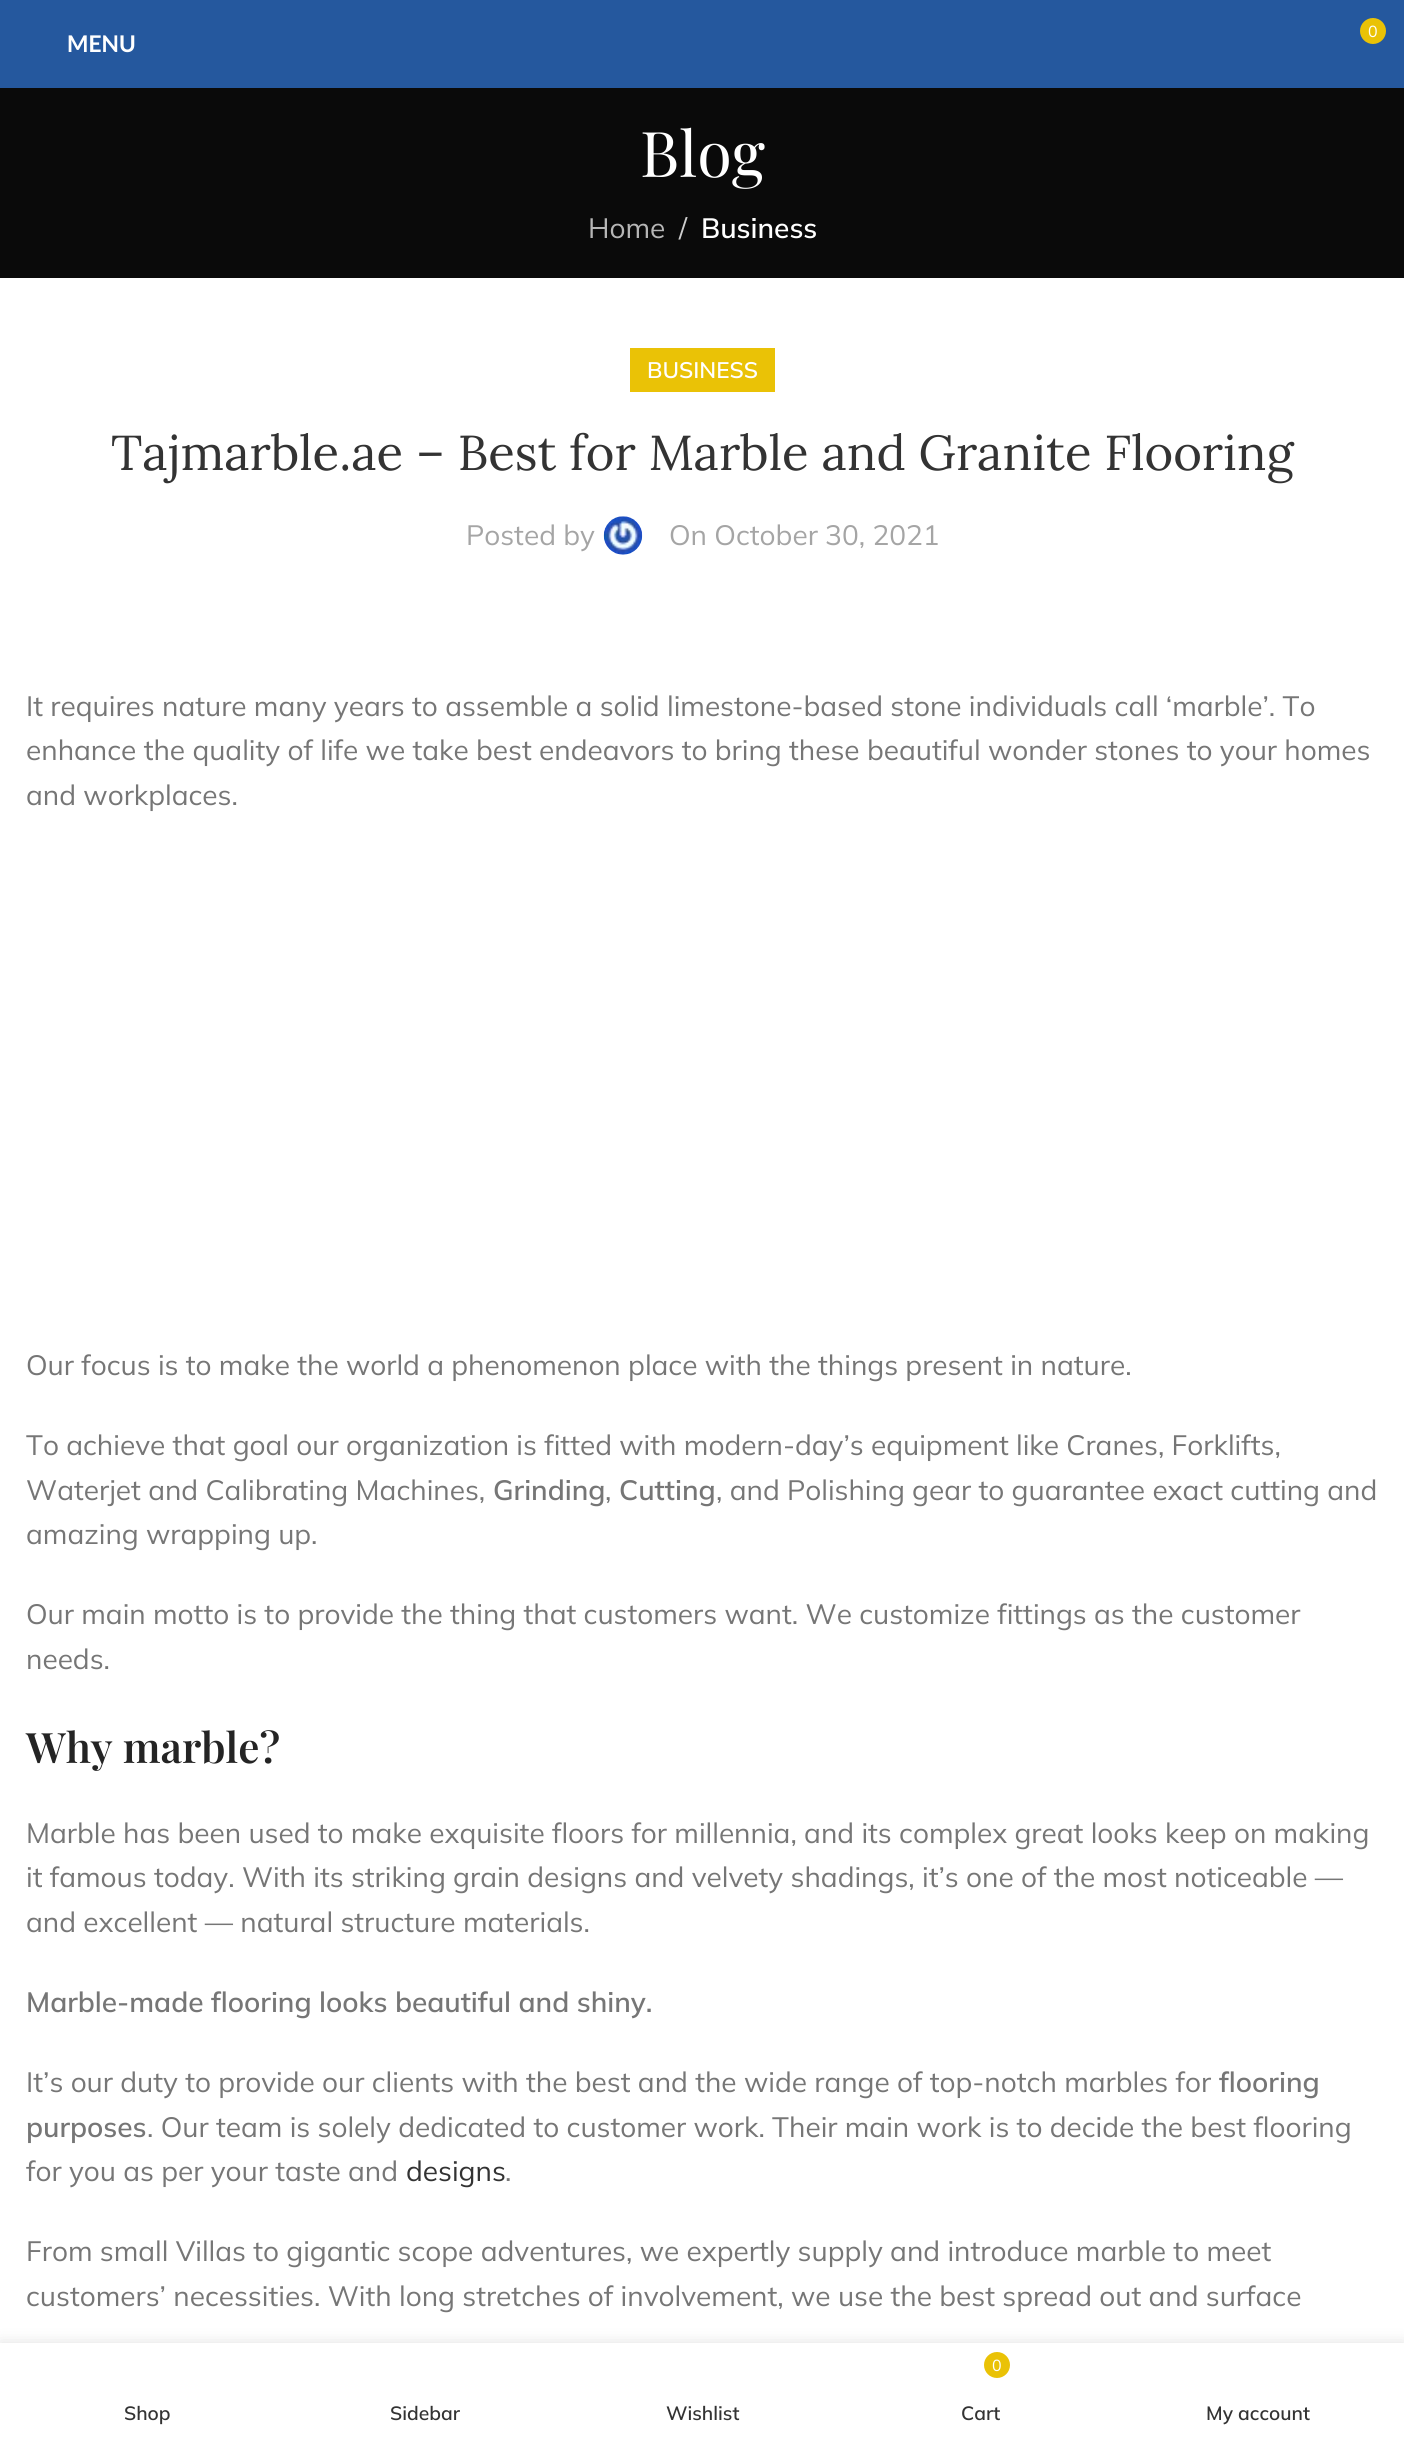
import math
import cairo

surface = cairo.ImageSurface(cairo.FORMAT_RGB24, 1404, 2438)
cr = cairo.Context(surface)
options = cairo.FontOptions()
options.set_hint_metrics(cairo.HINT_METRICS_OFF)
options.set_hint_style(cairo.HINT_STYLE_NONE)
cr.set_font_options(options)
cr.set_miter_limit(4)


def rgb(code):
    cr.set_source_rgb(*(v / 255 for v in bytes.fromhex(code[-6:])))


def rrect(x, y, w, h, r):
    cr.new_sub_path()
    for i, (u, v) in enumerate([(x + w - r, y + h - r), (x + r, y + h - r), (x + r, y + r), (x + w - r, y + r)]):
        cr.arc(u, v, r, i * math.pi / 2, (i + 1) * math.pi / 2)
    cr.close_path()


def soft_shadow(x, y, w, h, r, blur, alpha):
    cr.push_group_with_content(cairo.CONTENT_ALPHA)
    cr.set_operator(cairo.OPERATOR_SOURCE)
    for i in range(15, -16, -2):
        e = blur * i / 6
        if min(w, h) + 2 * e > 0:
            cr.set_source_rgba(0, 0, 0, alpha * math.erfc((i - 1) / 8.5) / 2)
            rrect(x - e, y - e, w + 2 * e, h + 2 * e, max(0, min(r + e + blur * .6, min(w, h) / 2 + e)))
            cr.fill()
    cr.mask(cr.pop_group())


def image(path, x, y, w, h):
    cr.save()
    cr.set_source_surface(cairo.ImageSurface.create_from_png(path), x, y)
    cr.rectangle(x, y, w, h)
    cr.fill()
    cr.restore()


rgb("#ffffff")
cr.paint()
rgb("#25589e")
cr.rectangle(0, 0, 1404, 88)
cr.fill()
rgb("#eac206")
cr.arc(1373, 31, 13, 0, 2 * math.pi)
cr.fill()
rgb("#0a0a0a")
cr.rectangle(0, 88, 1404, 190)
cr.fill()
rgb("#eac206")
cr.rectangle(630, 348, 145, 44)
cr.fill()
image("img/1.png", 603, 516, 40, 39)
rgb("#000000")
soft_shadow(0, 2343, 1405, 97, 0, 8, 0.12)
rgb("#ffffff")
cr.rectangle(0, 2343, 1404, 95)
cr.fill()
rgb("#eac206")
cr.arc(997, 2365, 13, 0, 2 * math.pi)
cr.fill()
cr.select_font_face("Mulish")
cr.set_font_size(16)
rgb("#ffffff")
cr.move_to(1368, 37)
cr.show_text("0")
cr.select_font_face("Lato", cairo.FONT_SLANT_NORMAL, cairo.FONT_WEIGHT_BOLD)
cr.set_font_size(23)
cr.move_to(67, 52)
cr.show_text("MENU")
cr.select_font_face("Playfair Display")
cr.set_font_size(63)
cr.move_to(640, 177)
cr.show_text("Blog")
cr.select_font_face("Mulish")
cr.set_font_size(28)
rgb("#b6b6b6")
cr.move_to(588, 238)
cr.show_text("Home")
rgb("#cecece")
cr.move_to(679, 238)
cr.show_text("/")
cr.select_font_face("Mulish SemiBold")
rgb("#ffffff")
cr.move_to(701, 238)
cr.show_text("Business")
cr.set_font_size(22.5)
cr.move_to(647, 378)
cr.show_text("BUSINESS")
cr.select_font_face("Lora")
cr.set_font_size(49)
rgb("#333333")
cr.move_to(111, 470)
cr.show_text("Tajmarble.ae – Best for Marble and Granite Flooring")
cr.select_font_face("Mulish")
cr.set_font_size(28)
rgb("#a5a5a5")
cr.move_to(466, 545)
cr.show_text("Posted by")
cr.move_to(669, 545)
cr.show_text("On October 30, 2021")
rgb("#767676")
for x, y, s in [
    (26, 716, "It requires nature many years to assemble a solid limestone-based stone individuals call ‘marble’. To"),
    (26, 760, "enhance the quality of life we take best endeavors to bring these beautiful wonder stones to your homes"),
    (26, 805, "and workplaces."),
    (26, 1375, "Our focus is to make the world a phenomenon place with the things present in nature."),
    (26, 1455, "To achieve that goal our organization is fitted with modern-day’s equipment like Cranes, Forklifts,"),
    (26, 1500, "Waterjet and Calibrating Machines,"),
]:
    cr.move_to(x, y)
    cr.show_text(s)
cr.select_font_face("Mulish SemiBold")
cr.move_to(493, 1500)
cr.show_text("Grinding")
cr.select_font_face("Mulish")
cr.move_to(605, 1500)
cr.show_text(",")
cr.select_font_face("Mulish SemiBold")
cr.move_to(619, 1500)
cr.show_text("Cutting")
cr.select_font_face("Mulish")
for x, y, s in [
    (716, 1500, ", and Polishing gear to guarantee exact cutting and"),
    (26, 1544, "amazing wrapping up."),
    (26, 1624, "Our main motto is to provide the thing that customers want. We customize fittings as the customer"),
    (26, 1669, "needs."),
]:
    cr.move_to(x, y)
    cr.show_text(s)
cr.select_font_face("Playfair Display SemiBold")
cr.set_font_size(42)
rgb("#242424")
cr.move_to(26, 1763)
cr.show_text("Why marble?")
cr.select_font_face("Mulish")
cr.set_font_size(28)
rgb("#767676")
for x, y, s in [
    (26, 1843, "Marble has been used to make exquisite floors for millennia, and its complex great looks keep on making"),
    (26, 1887, "it famous today. With its striking grain designs and velvety shadings, it’s one of the most noticeable —"),
    (26, 1932, "and excellent — natural structure materials."),
]:
    cr.move_to(x, y)
    cr.show_text(s)
cr.select_font_face("Mulish SemiBold")
cr.move_to(26, 2012)
cr.show_text("Marble-made flooring looks beautiful and shiny.")
cr.select_font_face("Mulish")
cr.move_to(26, 2092)
cr.show_text("It’s our duty to provide our clients with the best and the wide range of top-notch marbles for")
cr.select_font_face("Mulish SemiBold")
cr.move_to(1219, 2092)
cr.show_text("flooring")
cr.move_to(26, 2137)
cr.show_text("purposes")
cr.select_font_face("Mulish")
cr.move_to(147, 2137)
cr.show_text(". Our team is solely dedicated to customer work. Their main work is to decide the best flooring")
cr.move_to(26, 2181)
cr.show_text("for you as per your taste and")
rgb("#333333")
cr.move_to(406, 2181)
cr.show_text("designs")
rgb("#767676")
for x, y, s in [
    (505, 2181, "."),
    (26, 2261, "From small Villas to gigantic scope adventures, we expertly supply and introduce marble to meet"),
    (26, 2306, "customers’ necessities. With long stretches of involvement, we use the best spread out and surface"),
]:
    cr.move_to(x, y)
    cr.show_text(s)
cr.select_font_face("Mulish SemiBold")
cr.set_font_size(19.25)
rgb("#333333")
for x, y, s in [
    (124, 2420, "Shop"),
    (390, 2420, "Sidebar"),
    (666, 2420, "Wishlist"),
]:
    cr.move_to(x, y)
    cr.show_text(s)
cr.select_font_face("Mulish")
cr.set_font_size(16)
rgb("#ffffff")
cr.move_to(992, 2371)
cr.show_text("0")
cr.select_font_face("Mulish SemiBold")
cr.set_font_size(19.25)
rgb("#333333")
cr.move_to(961, 2420)
cr.show_text("Cart")
cr.move_to(1206, 2420)
cr.show_text("My account")
surface.write_to_png("page.png")
